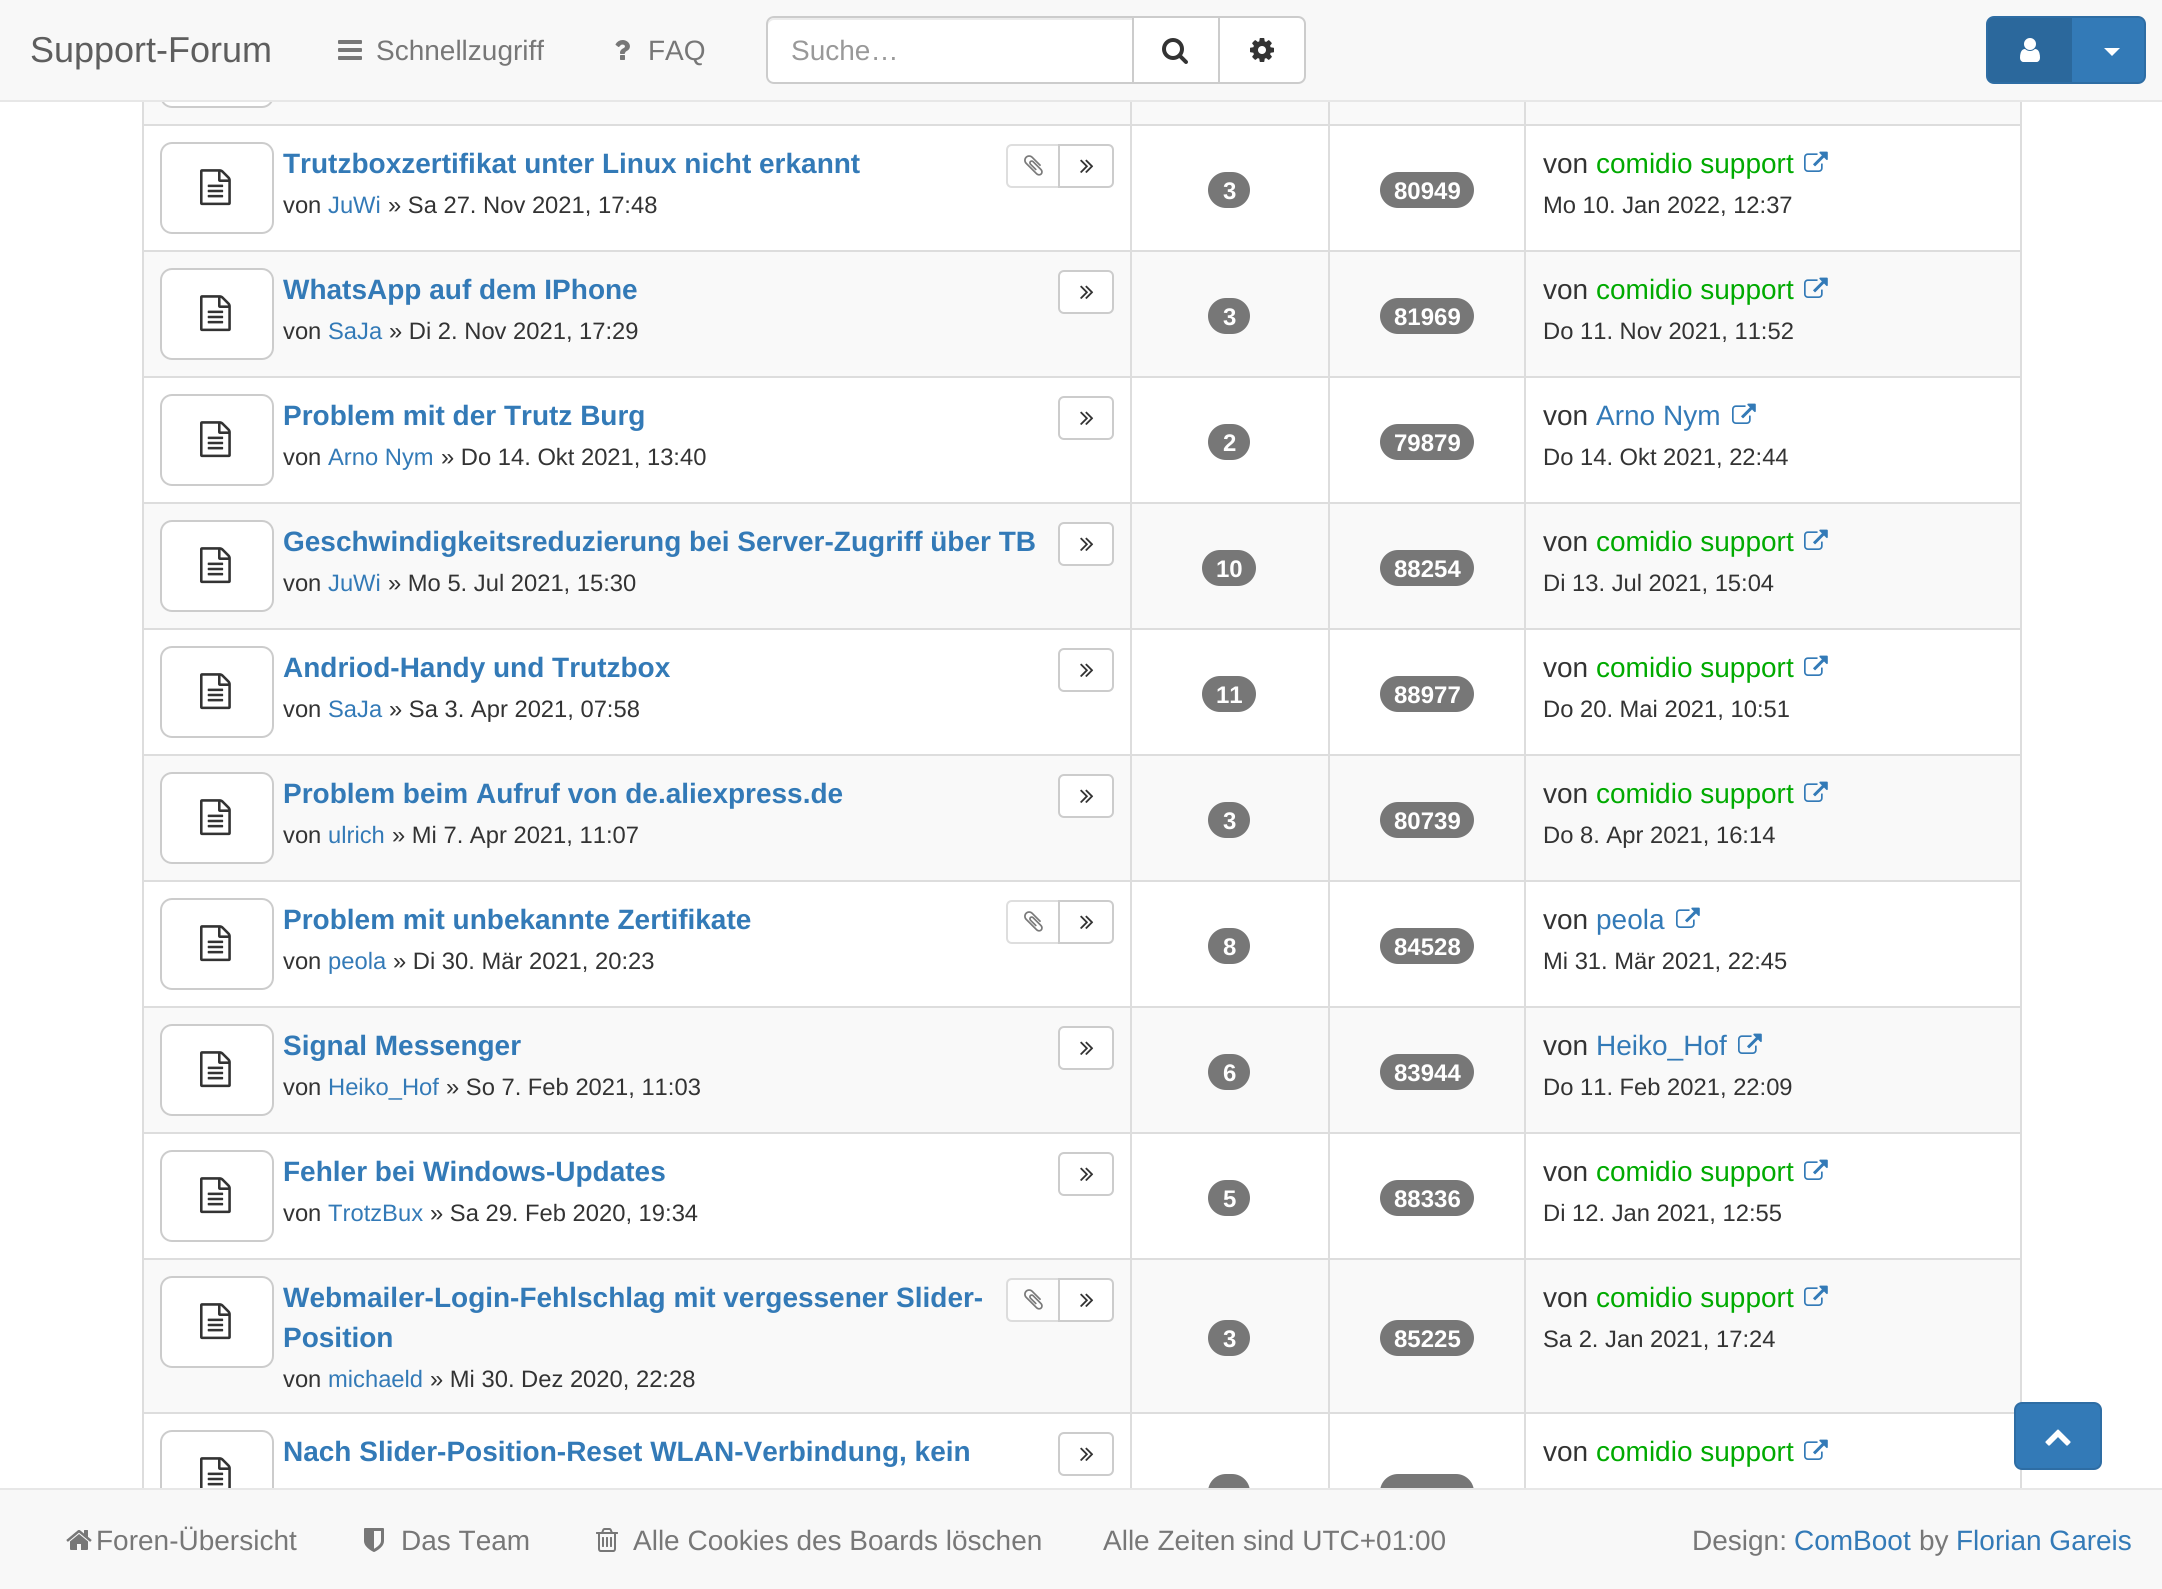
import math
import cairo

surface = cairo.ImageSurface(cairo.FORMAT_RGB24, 2162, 1589)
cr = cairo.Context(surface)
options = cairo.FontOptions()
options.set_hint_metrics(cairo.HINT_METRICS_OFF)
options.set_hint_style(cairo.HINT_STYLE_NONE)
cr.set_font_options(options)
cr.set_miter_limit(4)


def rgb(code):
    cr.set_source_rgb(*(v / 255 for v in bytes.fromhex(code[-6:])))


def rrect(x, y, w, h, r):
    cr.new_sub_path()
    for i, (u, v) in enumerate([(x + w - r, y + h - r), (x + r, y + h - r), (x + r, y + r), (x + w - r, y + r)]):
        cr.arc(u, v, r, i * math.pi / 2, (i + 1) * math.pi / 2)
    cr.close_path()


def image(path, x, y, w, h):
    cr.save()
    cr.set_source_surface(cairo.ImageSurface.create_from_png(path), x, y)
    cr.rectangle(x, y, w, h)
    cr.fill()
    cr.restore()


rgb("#ffffff")
cr.paint()
rgb("#f9f9f9")
cr.rectangle(144, 102, 1876, 22)
cr.fill()
rgb("#ffffff")
rrect(161, 17, 112, 90, 11)
cr.fill_preserve()
rgb("#cccccc")
cr.stroke()
rgb("#f8f8f8")
cr.rectangle(0, 0, 2162, 100)
cr.fill()
rgb("#e7e7e7")
cr.rectangle(0, 100, 2162, 2)
cr.fill()
image("img/1.png", 338, 40, 24, 20)
image("img/2.png", 615, 40, 15, 20)
rgb("#ffffff")
cr.new_path()
cr.move_to(774, 16)
cr.line_to(1134, 16)
cr.line_to(1134, 84)
cr.line_to(774, 84)
cr.curve_to(769.5, 84, 766, 80.5, 766, 76)
cr.line_to(766, 24)
cr.curve_to(766, 19.5, 769.5, 16, 774, 16)
cr.close_path()
cr.fill()
rgb("#ececec")
cr.new_path()
cr.move_to(774, 20)
cr.line_to(1132, 20)
cr.line_to(1132, 18)
cr.line_to(774, 18)
cr.curve_to(771, 18, 768, 21, 768, 24)
cr.line_to(768, 26)
cr.curve_to(768, 23, 771, 20, 774, 20)
cr.close_path()
cr.fill()
cr.new_path()
cr.move_to(774, 17)
cr.line_to(1133, 17)
cr.line_to(1133, 83)
cr.line_to(774, 83)
cr.curve_to(770, 83, 767, 80, 767, 76)
cr.line_to(767, 24)
cr.curve_to(767, 20, 770, 17, 774, 17)
cr.close_path()
rgb("#cccccc")
cr.stroke()
rgb("#ffffff")
cr.rectangle(1133, 17, 86, 66)
cr.fill_preserve()
rgb("#cccccc")
cr.stroke()
image("img/3.png", 1162, 38, 26, 26)
rgb("#ffffff")
cr.new_path()
cr.move_to(1219, 17)
cr.line_to(1298, 17)
cr.curve_to(1302, 17, 1305, 20, 1305, 24)
cr.line_to(1305, 76)
cr.curve_to(1305, 80, 1302, 83, 1298, 83)
cr.line_to(1219, 83)
cr.close_path()
cr.fill_preserve()
rgb("#cccccc")
cr.stroke()
image("img/4.png", 1250, 38, 24, 24)
rgb("#337ab7")
rrect(1987, 17, 158, 66, 7)
cr.fill_preserve()
rgb("#2e6da4")
cr.stroke()
cr.set_source_rgba(0, 0, 0, 0.15)
cr.new_path()
cr.move_to(1994, 18)
cr.line_to(2072, 18)
cr.line_to(2072, 82)
cr.line_to(1994, 82)
cr.curve_to(1990.5, 82, 1988, 79.5, 1988, 76)
cr.line_to(1988, 24)
cr.curve_to(1988, 20.5, 1990.5, 18, 1994, 18)
cr.close_path()
cr.fill()
image("img/5.png", 2020, 38, 20, 24)
rgb("#ffffff")
cr.new_path()
cr.move_to(2104, 48)
cr.line_to(2120, 48)
cr.line_to(2112, 56)
cr.close_path()
cr.fill()
for x, y, w, h, color in [
    (2020, 102, 2, 1386, "#dddddd"),
    (142, 102, 2, 1386, "#dddddd"),
    (1524, 124, 498, 2, "#dddddd"),
    (1524, 250, 498, 2, "#dddddd"),
    (144, 252, 1876, 124, "#f9f9f9"),
    (1524, 376, 498, 2, "#dddddd"),
    (1524, 502, 498, 2, "#dddddd"),
    (144, 504, 1876, 124, "#f9f9f9"),
    (1524, 628, 498, 2, "#dddddd"),
    (1524, 754, 498, 2, "#dddddd"),
    (144, 756, 1876, 124, "#f9f9f9"),
    (1524, 880, 498, 2, "#dddddd"),
    (1524, 1006, 498, 2, "#dddddd"),
    (144, 1008, 1876, 124, "#f9f9f9"),
    (1524, 1132, 498, 2, "#dddddd"),
    (1524, 1258, 498, 2, "#dddddd"),
    (144, 1260, 1876, 152, "#f9f9f9"),
    (1524, 1412, 498, 2, "#dddddd"),
    (1524, 1412, 2, 76, "#dddddd"),
    (1328, 1412, 198, 2, "#dddddd"),
    (1524, 1258, 2, 156, "#dddddd"),
    (1328, 1258, 198, 2, "#dddddd"),
    (1524, 1132, 2, 128, "#dddddd"),
    (1328, 1132, 198, 2, "#dddddd"),
    (1524, 1006, 2, 128, "#dddddd"),
    (1328, 1006, 198, 2, "#dddddd"),
    (1524, 880, 2, 128, "#dddddd"),
    (1328, 880, 198, 2, "#dddddd"),
    (1524, 754, 2, 128, "#dddddd"),
    (1328, 754, 198, 2, "#dddddd"),
    (1524, 628, 2, 128, "#dddddd"),
    (1328, 628, 198, 2, "#dddddd"),
    (1524, 502, 2, 128, "#dddddd"),
    (1328, 502, 198, 2, "#dddddd"),
    (1524, 376, 2, 128, "#dddddd"),
    (1328, 376, 198, 2, "#dddddd"),
    (1524, 250, 2, 128, "#dddddd"),
    (1328, 250, 198, 2, "#dddddd"),
    (1524, 124, 2, 128, "#dddddd"),
    (1328, 124, 198, 2, "#dddddd"),
    (1328, 1412, 2, 76, "#dddddd"),
    (1130, 1412, 200, 2, "#dddddd"),
    (1328, 1258, 2, 156, "#dddddd"),
    (1130, 1258, 200, 2, "#dddddd"),
    (1328, 1132, 2, 128, "#dddddd"),
    (1130, 1132, 200, 2, "#dddddd"),
    (1328, 1006, 2, 128, "#dddddd"),
    (1130, 1006, 200, 2, "#dddddd"),
    (1328, 880, 2, 128, "#dddddd"),
    (1130, 880, 200, 2, "#dddddd"),
    (1328, 754, 2, 128, "#dddddd"),
    (1130, 754, 200, 2, "#dddddd"),
    (1328, 628, 2, 128, "#dddddd"),
    (1130, 628, 200, 2, "#dddddd"),
    (1328, 502, 2, 128, "#dddddd"),
    (1130, 502, 200, 2, "#dddddd"),
    (1328, 376, 2, 128, "#dddddd"),
    (1130, 376, 200, 2, "#dddddd"),
    (1328, 250, 2, 128, "#dddddd"),
    (1130, 250, 200, 2, "#dddddd"),
    (1328, 124, 2, 128, "#dddddd"),
    (1130, 124, 200, 2, "#dddddd"),
    (1130, 1412, 2, 76, "#dddddd"),
    (142, 1412, 990, 2, "#dddddd"),
    (1130, 1258, 2, 156, "#dddddd"),
    (142, 1258, 990, 2, "#dddddd"),
    (1130, 1132, 2, 128, "#dddddd"),
    (142, 1132, 990, 2, "#dddddd"),
    (1130, 1006, 2, 128, "#dddddd"),
    (142, 1006, 990, 2, "#dddddd"),
    (1130, 880, 2, 128, "#dddddd"),
    (142, 880, 990, 2, "#dddddd"),
    (1130, 754, 2, 128, "#dddddd"),
    (142, 754, 990, 2, "#dddddd"),
    (1130, 628, 2, 128, "#dddddd"),
    (142, 628, 990, 2, "#dddddd"),
    (1130, 502, 2, 128, "#dddddd"),
    (142, 502, 990, 2, "#dddddd"),
    (1130, 376, 2, 128, "#dddddd"),
    (142, 376, 990, 2, "#dddddd"),
    (1130, 250, 2, 128, "#dddddd"),
    (142, 250, 990, 2, "#dddddd"),
    (1130, 124, 2, 128, "#dddddd"),
    (142, 124, 990, 2, "#dddddd"),
    (1130, 102, 2, 24, "#dddddd"),
    (1328, 102, 2, 24, "#dddddd"),
    (1524, 102, 2, 24, "#dddddd"),
]:
    rgb(color)
    cr.rectangle(x, y, w, h)
    cr.fill()
rrect(161, 143, 112, 90, 11)
rgb("#cccccc")
cr.stroke()
image("img/6.png", 200, 169, 31, 37)
cr.new_path()
cr.move_to(1012, 145)
cr.line_to(1059, 145)
cr.line_to(1059, 187)
cr.line_to(1012, 187)
cr.curve_to(1009, 187, 1007, 185, 1007, 182)
cr.line_to(1007, 150)
cr.curve_to(1007, 147, 1009, 145, 1012, 145)
cr.close_path()
rgb("#dedede")
cr.stroke()
image("img/7.png", 1024, 155, 19, 21)
rgb("#ffffff")
cr.new_path()
cr.move_to(1059, 145)
cr.line_to(1108, 145)
cr.curve_to(1111, 145, 1113, 147, 1113, 150)
cr.line_to(1113, 182)
cr.curve_to(1113, 185, 1111, 187, 1108, 187)
cr.line_to(1059, 187)
cr.close_path()
cr.fill_preserve()
rgb("#cccccc")
cr.stroke()
image("img/8.png", 1080, 159, 14, 14)
rgb("#777777")
rrect(1208, 172, 42, 36, 18)
cr.fill()
rrect(1380, 172, 94, 36, 18)
cr.fill()
image("img/9.png", 1804, 151, 24, 21)
rgb("#ffffff")
rrect(161, 269, 112, 90, 11)
cr.fill_preserve()
rgb("#cccccc")
cr.stroke()
image("img/6.png", 200, 295, 31, 37)
rgb("#ffffff")
rrect(1059, 271, 54, 42, 5)
cr.fill_preserve()
rgb("#cccccc")
cr.stroke()
image("img/8.png", 1080, 285, 14, 14)
rgb("#777777")
rrect(1208, 298, 42, 36, 18)
cr.fill()
rrect(1380, 298, 94, 36, 18)
cr.fill()
image("img/10.png", 1804, 277, 24, 21)
rrect(161, 395, 112, 90, 11)
rgb("#cccccc")
cr.stroke()
image("img/6.png", 200, 421, 31, 37)
rrect(1059, 397, 54, 42, 5)
cr.stroke()
image("img/8.png", 1080, 411, 14, 14)
rgb("#777777")
rrect(1208, 424, 42, 36, 18)
cr.fill()
rrect(1380, 424, 94, 36, 18)
cr.fill()
image("img/9.png", 1732, 403, 24, 21)
rgb("#ffffff")
rrect(161, 521, 112, 90, 11)
cr.fill_preserve()
rgb("#cccccc")
cr.stroke()
image("img/6.png", 200, 547, 31, 37)
rgb("#ffffff")
rrect(1059, 523, 54, 42, 5)
cr.fill_preserve()
rgb("#cccccc")
cr.stroke()
image("img/8.png", 1080, 537, 14, 14)
rgb("#777777")
rrect(1202, 550, 54, 36, 18)
cr.fill()
rrect(1380, 550, 94, 36, 18)
cr.fill()
image("img/10.png", 1804, 529, 24, 21)
rrect(161, 647, 112, 90, 11)
rgb("#cccccc")
cr.stroke()
image("img/6.png", 200, 673, 31, 37)
rrect(1059, 649, 54, 42, 5)
cr.stroke()
image("img/8.png", 1080, 663, 14, 14)
rgb("#777777")
rrect(1202, 676, 54, 36, 18)
cr.fill()
rrect(1380, 676, 94, 36, 18)
cr.fill()
image("img/9.png", 1804, 655, 24, 21)
rgb("#ffffff")
rrect(161, 773, 112, 90, 11)
cr.fill_preserve()
rgb("#cccccc")
cr.stroke()
image("img/6.png", 200, 799, 31, 37)
rgb("#ffffff")
rrect(1059, 775, 54, 42, 5)
cr.fill_preserve()
rgb("#cccccc")
cr.stroke()
image("img/8.png", 1080, 789, 14, 14)
rgb("#777777")
rrect(1208, 802, 42, 36, 18)
cr.fill()
rrect(1380, 802, 94, 36, 18)
cr.fill()
image("img/10.png", 1804, 781, 24, 21)
rrect(161, 899, 112, 90, 11)
rgb("#cccccc")
cr.stroke()
image("img/6.png", 200, 925, 31, 37)
cr.new_path()
cr.move_to(1012, 901)
cr.line_to(1059, 901)
cr.line_to(1059, 943)
cr.line_to(1012, 943)
cr.curve_to(1009, 943, 1007, 941, 1007, 938)
cr.line_to(1007, 906)
cr.curve_to(1007, 903, 1009, 901, 1012, 901)
cr.close_path()
rgb("#dedede")
cr.stroke()
image("img/7.png", 1024, 911, 19, 21)
rgb("#ffffff")
cr.new_path()
cr.move_to(1059, 901)
cr.line_to(1108, 901)
cr.curve_to(1111, 901, 1113, 903, 1113, 906)
cr.line_to(1113, 938)
cr.curve_to(1113, 941, 1111, 943, 1108, 943)
cr.line_to(1059, 943)
cr.close_path()
cr.fill_preserve()
rgb("#cccccc")
cr.stroke()
image("img/8.png", 1080, 915, 14, 14)
rgb("#777777")
rrect(1208, 928, 42, 36, 18)
cr.fill()
rrect(1380, 928, 94, 36, 18)
cr.fill()
image("img/9.png", 1676, 907, 24, 21)
rgb("#ffffff")
rrect(161, 1025, 112, 90, 11)
cr.fill_preserve()
rgb("#cccccc")
cr.stroke()
image("img/6.png", 200, 1051, 31, 37)
rgb("#ffffff")
rrect(1059, 1027, 54, 42, 5)
cr.fill_preserve()
rgb("#cccccc")
cr.stroke()
image("img/8.png", 1080, 1041, 14, 14)
rgb("#777777")
rrect(1208, 1054, 42, 36, 18)
cr.fill()
rrect(1380, 1054, 94, 36, 18)
cr.fill()
image("img/10.png", 1738, 1033, 24, 21)
rrect(161, 1151, 112, 90, 11)
rgb("#cccccc")
cr.stroke()
image("img/6.png", 200, 1177, 31, 37)
rrect(1059, 1153, 54, 42, 5)
cr.stroke()
image("img/8.png", 1080, 1167, 14, 14)
rgb("#777777")
rrect(1208, 1180, 42, 36, 18)
cr.fill()
rrect(1380, 1180, 94, 36, 18)
cr.fill()
image("img/9.png", 1804, 1159, 24, 21)
rgb("#ffffff")
rrect(161, 1277, 112, 90, 11)
cr.fill_preserve()
rgb("#cccccc")
cr.stroke()
image("img/6.png", 200, 1303, 31, 37)
rgb("#fdfdfd")
cr.new_path()
cr.move_to(1012, 1279)
cr.line_to(1059, 1279)
cr.line_to(1059, 1321)
cr.line_to(1012, 1321)
cr.curve_to(1009, 1321, 1007, 1319, 1007, 1316)
cr.line_to(1007, 1284)
cr.curve_to(1007, 1281, 1009, 1279, 1012, 1279)
cr.close_path()
cr.fill_preserve()
rgb("#dcdcdc")
cr.stroke()
image("img/11.png", 1024, 1289, 19, 21)
rgb("#ffffff")
cr.new_path()
cr.move_to(1059, 1279)
cr.line_to(1108, 1279)
cr.curve_to(1111, 1279, 1113, 1281, 1113, 1284)
cr.line_to(1113, 1316)
cr.curve_to(1113, 1319, 1111, 1321, 1108, 1321)
cr.line_to(1059, 1321)
cr.close_path()
cr.fill_preserve()
rgb("#cccccc")
cr.stroke()
image("img/8.png", 1080, 1293, 14, 14)
rgb("#777777")
rrect(1208, 1320, 42, 36, 18)
cr.fill()
rrect(1380, 1320, 94, 36, 18)
cr.fill()
image("img/10.png", 1804, 1285, 24, 21)
rrect(161, 1431, 112, 90, 11)
rgb("#cccccc")
cr.stroke()
image("img/12.png", 200, 1457, 31, 31)
rrect(1059, 1433, 54, 42, 5)
cr.stroke()
image("img/8.png", 1080, 1447, 14, 14)
rgb("#777777")
rrect(1208, 1474, 42, 36, 18)
cr.fill()
rrect(1380, 1474, 94, 36, 18)
cr.fill()
image("img/9.png", 1804, 1439, 24, 21)
rgb("#337ab7")
rrect(2015, 1403, 86, 66, 7)
cr.fill_preserve()
rgb("#2e6da4")
cr.stroke()
image("img/13.png", 2045, 1429, 26, 17)
rgb("#f8f8f8")
cr.rectangle(0, 1490, 2162, 99)
cr.fill()
rgb("#e7e7e7")
cr.rectangle(0, 1488, 2162, 2)
cr.fill()
image("img/14.png", 66, 1530, 26, 20)
image("img/15.png", 364, 1528, 20, 24)
image("img/16.png", 596, 1528, 22, 24)
cr.select_font_face("Liberation Sans")
cr.set_font_size(36)
rgb("#5e5e5e")
cr.move_to(30, 62)
cr.show_text("Support-Forum")
cr.set_font_size(28)
rgb("#777777")
cr.move_to(376, 60)
cr.show_text("Schnellzugriff")
cr.move_to(648, 60)
cr.show_text("FAQ")
rgb("#999999")
cr.move_to(791, 60)
cr.show_text("Suche…")
cr.select_font_face("Liberation Sans", cairo.FONT_SLANT_NORMAL, cairo.FONT_WEIGHT_BOLD)
rgb("#337ab7")
cr.move_to(283, 173)
cr.show_text("Trutzboxzertifikat unter Linux nicht erkannt")
cr.select_font_face("Liberation Sans")
cr.set_font_size(23.75)
rgb("#333333")
cr.move_to(283, 213)
cr.show_text("von")
rgb("#337ab7")
cr.move_to(328, 213)
cr.show_text("JuWi")
rgb("#333333")
cr.move_to(388, 213)
cr.show_text("» Sa 27. Nov 2021, 17:48")
cr.select_font_face("Liberation Sans", cairo.FONT_SLANT_NORMAL, cairo.FONT_WEIGHT_BOLD)
cr.set_font_size(24)
rgb("#ffffff")
cr.move_to(1223, 199)
cr.show_text("3")
cr.move_to(1394, 199)
cr.show_text("80949")
cr.select_font_face("Liberation Sans")
cr.set_font_size(28)
rgb("#333333")
cr.move_to(1543, 173)
cr.show_text("von")
rgb("#00aa00")
cr.move_to(1596, 173)
cr.show_text("comidio support")
cr.set_font_size(23.75)
rgb("#333333")
cr.move_to(1543, 213)
cr.show_text("Mo 10. Jan 2022, 12:37")
cr.select_font_face("Liberation Sans", cairo.FONT_SLANT_NORMAL, cairo.FONT_WEIGHT_BOLD)
cr.set_font_size(28)
rgb("#337ab7")
cr.move_to(283, 299)
cr.show_text("WhatsApp auf dem IPhone")
cr.select_font_face("Liberation Sans")
cr.set_font_size(23.75)
rgb("#333333")
cr.move_to(283, 339)
cr.show_text("von")
rgb("#337ab7")
cr.move_to(328, 339)
cr.show_text("SaJa")
rgb("#333333")
cr.move_to(389, 339)
cr.show_text("» Di 2. Nov 2021, 17:29")
cr.select_font_face("Liberation Sans", cairo.FONT_SLANT_NORMAL, cairo.FONT_WEIGHT_BOLD)
cr.set_font_size(24)
rgb("#ffffff")
cr.move_to(1223, 325)
cr.show_text("3")
cr.move_to(1394, 325)
cr.show_text("81969")
cr.select_font_face("Liberation Sans")
cr.set_font_size(28)
rgb("#333333")
cr.move_to(1543, 299)
cr.show_text("von")
rgb("#00aa00")
cr.move_to(1596, 299)
cr.show_text("comidio support")
cr.set_font_size(23.75)
rgb("#333333")
cr.move_to(1543, 339)
cr.show_text("Do 11. Nov 2021, 11:52")
cr.select_font_face("Liberation Sans", cairo.FONT_SLANT_NORMAL, cairo.FONT_WEIGHT_BOLD)
cr.set_font_size(28)
rgb("#337ab7")
cr.move_to(283, 425)
cr.show_text("Problem mit der Trutz Burg")
cr.select_font_face("Liberation Sans")
cr.set_font_size(23.75)
rgb("#333333")
cr.move_to(283, 465)
cr.show_text("von")
rgb("#337ab7")
cr.move_to(328, 465)
cr.show_text("Arno Nym")
rgb("#333333")
cr.move_to(441, 465)
cr.show_text("» Do 14. Okt 2021, 13:40")
cr.select_font_face("Liberation Sans", cairo.FONT_SLANT_NORMAL, cairo.FONT_WEIGHT_BOLD)
cr.set_font_size(24)
rgb("#ffffff")
cr.move_to(1223, 451)
cr.show_text("2")
cr.move_to(1394, 451)
cr.show_text("79879")
cr.select_font_face("Liberation Sans")
cr.set_font_size(28)
rgb("#333333")
cr.move_to(1543, 425)
cr.show_text("von")
rgb("#337ab7")
cr.move_to(1596, 425)
cr.show_text("Arno Nym")
cr.set_font_size(23.75)
rgb("#333333")
cr.move_to(1543, 465)
cr.show_text("Do 14. Okt 2021, 22:44")
cr.select_font_face("Liberation Sans", cairo.FONT_SLANT_NORMAL, cairo.FONT_WEIGHT_BOLD)
cr.set_font_size(28)
rgb("#337ab7")
cr.move_to(283, 551)
cr.show_text("Geschwindigkeitsreduzierung bei Server-Zugriff über TB")
cr.select_font_face("Liberation Sans")
cr.set_font_size(23.75)
rgb("#333333")
cr.move_to(283, 591)
cr.show_text("von")
rgb("#337ab7")
cr.move_to(328, 591)
cr.show_text("JuWi")
rgb("#333333")
cr.move_to(388, 591)
cr.show_text("» Mo 5. Jul 2021, 15:30")
cr.select_font_face("Liberation Sans", cairo.FONT_SLANT_NORMAL, cairo.FONT_WEIGHT_BOLD)
cr.set_font_size(24)
rgb("#ffffff")
cr.move_to(1216, 577)
cr.show_text("10")
cr.move_to(1394, 577)
cr.show_text("88254")
cr.select_font_face("Liberation Sans")
cr.set_font_size(28)
rgb("#333333")
cr.move_to(1543, 551)
cr.show_text("von")
rgb("#00aa00")
cr.move_to(1596, 551)
cr.show_text("comidio support")
cr.set_font_size(23.75)
rgb("#333333")
cr.move_to(1543, 591)
cr.show_text("Di 13. Jul 2021, 15:04")
cr.select_font_face("Liberation Sans", cairo.FONT_SLANT_NORMAL, cairo.FONT_WEIGHT_BOLD)
cr.set_font_size(28)
rgb("#337ab7")
cr.move_to(283, 677)
cr.show_text("Andriod-Handy und Trutzbox")
cr.select_font_face("Liberation Sans")
cr.set_font_size(23.75)
rgb("#333333")
cr.move_to(283, 717)
cr.show_text("von")
rgb("#337ab7")
cr.move_to(328, 717)
cr.show_text("SaJa")
rgb("#333333")
cr.move_to(389, 717)
cr.show_text("» Sa 3. Apr 2021, 07:58")
cr.select_font_face("Liberation Sans", cairo.FONT_SLANT_NORMAL, cairo.FONT_WEIGHT_BOLD)
cr.set_font_size(24)
rgb("#ffffff")
cr.move_to(1216, 703)
cr.show_text("11")
cr.move_to(1394, 703)
cr.show_text("88977")
cr.select_font_face("Liberation Sans")
cr.set_font_size(28)
rgb("#333333")
cr.move_to(1543, 677)
cr.show_text("von")
rgb("#00aa00")
cr.move_to(1596, 677)
cr.show_text("comidio support")
cr.set_font_size(23.75)
rgb("#333333")
cr.move_to(1543, 717)
cr.show_text("Do 20. Mai 2021, 10:51")
cr.select_font_face("Liberation Sans", cairo.FONT_SLANT_NORMAL, cairo.FONT_WEIGHT_BOLD)
cr.set_font_size(28)
rgb("#337ab7")
cr.move_to(283, 803)
cr.show_text("Problem beim Aufruf von de.aliexpress.de")
cr.select_font_face("Liberation Sans")
cr.set_font_size(23.75)
rgb("#333333")
cr.move_to(283, 843)
cr.show_text("von")
rgb("#337ab7")
cr.move_to(328, 843)
cr.show_text("ulrich")
rgb("#333333")
cr.move_to(392, 843)
cr.show_text("» Mi 7. Apr 2021, 11:07")
cr.select_font_face("Liberation Sans", cairo.FONT_SLANT_NORMAL, cairo.FONT_WEIGHT_BOLD)
cr.set_font_size(24)
rgb("#ffffff")
cr.move_to(1223, 829)
cr.show_text("3")
cr.move_to(1394, 829)
cr.show_text("80739")
cr.select_font_face("Liberation Sans")
cr.set_font_size(28)
rgb("#333333")
cr.move_to(1543, 803)
cr.show_text("von")
rgb("#00aa00")
cr.move_to(1596, 803)
cr.show_text("comidio support")
cr.set_font_size(23.75)
rgb("#333333")
cr.move_to(1543, 843)
cr.show_text("Do 8. Apr 2021, 16:14")
cr.select_font_face("Liberation Sans", cairo.FONT_SLANT_NORMAL, cairo.FONT_WEIGHT_BOLD)
cr.set_font_size(28)
rgb("#337ab7")
cr.move_to(283, 929)
cr.show_text("Problem mit unbekannte Zertifikate")
cr.select_font_face("Liberation Sans")
cr.set_font_size(23.75)
rgb("#333333")
cr.move_to(283, 969)
cr.show_text("von")
rgb("#337ab7")
cr.move_to(328, 969)
cr.show_text("peola")
rgb("#333333")
cr.move_to(393, 969)
cr.show_text("» Di 30. Mär 2021, 20:23")
cr.select_font_face("Liberation Sans", cairo.FONT_SLANT_NORMAL, cairo.FONT_WEIGHT_BOLD)
cr.set_font_size(24)
rgb("#ffffff")
cr.move_to(1223, 955)
cr.show_text("8")
cr.move_to(1394, 955)
cr.show_text("84528")
cr.select_font_face("Liberation Sans")
cr.set_font_size(28)
rgb("#333333")
cr.move_to(1543, 929)
cr.show_text("von")
rgb("#337ab7")
cr.move_to(1596, 929)
cr.show_text("peola")
cr.set_font_size(23.75)
rgb("#333333")
cr.move_to(1543, 969)
cr.show_text("Mi 31. Mär 2021, 22:45")
cr.select_font_face("Liberation Sans", cairo.FONT_SLANT_NORMAL, cairo.FONT_WEIGHT_BOLD)
cr.set_font_size(28)
rgb("#337ab7")
cr.move_to(283, 1055)
cr.show_text("Signal Messenger")
cr.select_font_face("Liberation Sans")
cr.set_font_size(23.75)
rgb("#333333")
cr.move_to(283, 1095)
cr.show_text("von")
rgb("#337ab7")
cr.move_to(328, 1095)
cr.show_text("Heiko_Hof")
rgb("#333333")
cr.move_to(446, 1095)
cr.show_text("» So 7. Feb 2021, 11:03")
cr.select_font_face("Liberation Sans", cairo.FONT_SLANT_NORMAL, cairo.FONT_WEIGHT_BOLD)
cr.set_font_size(24)
rgb("#ffffff")
cr.move_to(1223, 1081)
cr.show_text("6")
cr.move_to(1394, 1081)
cr.show_text("83944")
cr.select_font_face("Liberation Sans")
cr.set_font_size(28)
rgb("#333333")
cr.move_to(1543, 1055)
cr.show_text("von")
rgb("#337ab7")
cr.move_to(1596, 1055)
cr.show_text("Heiko_Hof")
cr.set_font_size(23.75)
rgb("#333333")
cr.move_to(1543, 1095)
cr.show_text("Do 11. Feb 2021, 22:09")
cr.select_font_face("Liberation Sans", cairo.FONT_SLANT_NORMAL, cairo.FONT_WEIGHT_BOLD)
cr.set_font_size(28)
rgb("#337ab7")
cr.move_to(283, 1181)
cr.show_text("Fehler bei Windows-Updates")
cr.select_font_face("Liberation Sans")
cr.set_font_size(23.75)
rgb("#333333")
cr.move_to(283, 1221)
cr.show_text("von")
rgb("#337ab7")
cr.move_to(328, 1221)
cr.show_text("TrotzBux")
rgb("#333333")
cr.move_to(430, 1221)
cr.show_text("» Sa 29. Feb 2020, 19:34")
cr.select_font_face("Liberation Sans", cairo.FONT_SLANT_NORMAL, cairo.FONT_WEIGHT_BOLD)
cr.set_font_size(24)
rgb("#ffffff")
cr.move_to(1223, 1207)
cr.show_text("5")
cr.move_to(1394, 1207)
cr.show_text("88336")
cr.select_font_face("Liberation Sans")
cr.set_font_size(28)
rgb("#333333")
cr.move_to(1543, 1181)
cr.show_text("von")
rgb("#00aa00")
cr.move_to(1596, 1181)
cr.show_text("comidio support")
cr.set_font_size(23.75)
rgb("#333333")
cr.move_to(1543, 1221)
cr.show_text("Di 12. Jan 2021, 12:55")
cr.select_font_face("Liberation Sans", cairo.FONT_SLANT_NORMAL, cairo.FONT_WEIGHT_BOLD)
cr.set_font_size(28)
rgb("#337ab7")
cr.move_to(283, 1307)
cr.show_text("Webmailer-Login-Fehlschlag mit vergessener Slider-")
cr.move_to(283, 1347)
cr.show_text("Position")
cr.select_font_face("Liberation Sans")
cr.set_font_size(23.75)
rgb("#333333")
cr.move_to(283, 1387)
cr.show_text("von")
rgb("#337ab7")
cr.move_to(328, 1387)
cr.show_text("michaeld")
rgb("#333333")
cr.move_to(430, 1387)
cr.show_text("» Mi 30. Dez 2020, 22:28")
cr.select_font_face("Liberation Sans", cairo.FONT_SLANT_NORMAL, cairo.FONT_WEIGHT_BOLD)
cr.set_font_size(24)
rgb("#ffffff")
cr.move_to(1223, 1347)
cr.show_text("3")
cr.move_to(1394, 1347)
cr.show_text("85225")
cr.select_font_face("Liberation Sans")
cr.set_font_size(28)
rgb("#333333")
cr.move_to(1543, 1307)
cr.show_text("von")
rgb("#00aa00")
cr.move_to(1596, 1307)
cr.show_text("comidio support")
cr.set_font_size(23.75)
rgb("#333333")
cr.move_to(1543, 1347)
cr.show_text("Sa 2. Jan 2021, 17:24")
cr.select_font_face("Liberation Sans", cairo.FONT_SLANT_NORMAL, cairo.FONT_WEIGHT_BOLD)
cr.set_font_size(28)
rgb("#337ab7")
cr.move_to(283, 1461)
cr.show_text("Nach Slider-Position-Reset WLAN-Verbindung, kein")
cr.select_font_face("Liberation Sans")
rgb("#333333")
cr.move_to(1543, 1461)
cr.show_text("von")
rgb("#00aa00")
cr.move_to(1596, 1461)
cr.show_text("comidio support")
rgb("#777777")
for x, y, s in [
    (96, 1550, "Foren-Übersicht"),
    (401, 1550, "Das Team"),
    (633, 1550, "Alle Cookies des Boards löschen"),
    (1103, 1550, "Alle Zeiten sind UTC+01:00"),
    (1692, 1550, "Design:"),
]:
    cr.move_to(x, y)
    cr.show_text(s)
rgb("#337ab7")
cr.move_to(1794, 1550)
cr.show_text("ComBoot")
rgb("#777777")
cr.move_to(1919, 1550)
cr.show_text("by")
rgb("#337ab7")
cr.move_to(1956, 1550)
cr.show_text("Florian Gareis")
surface.write_to_png("page.png")
